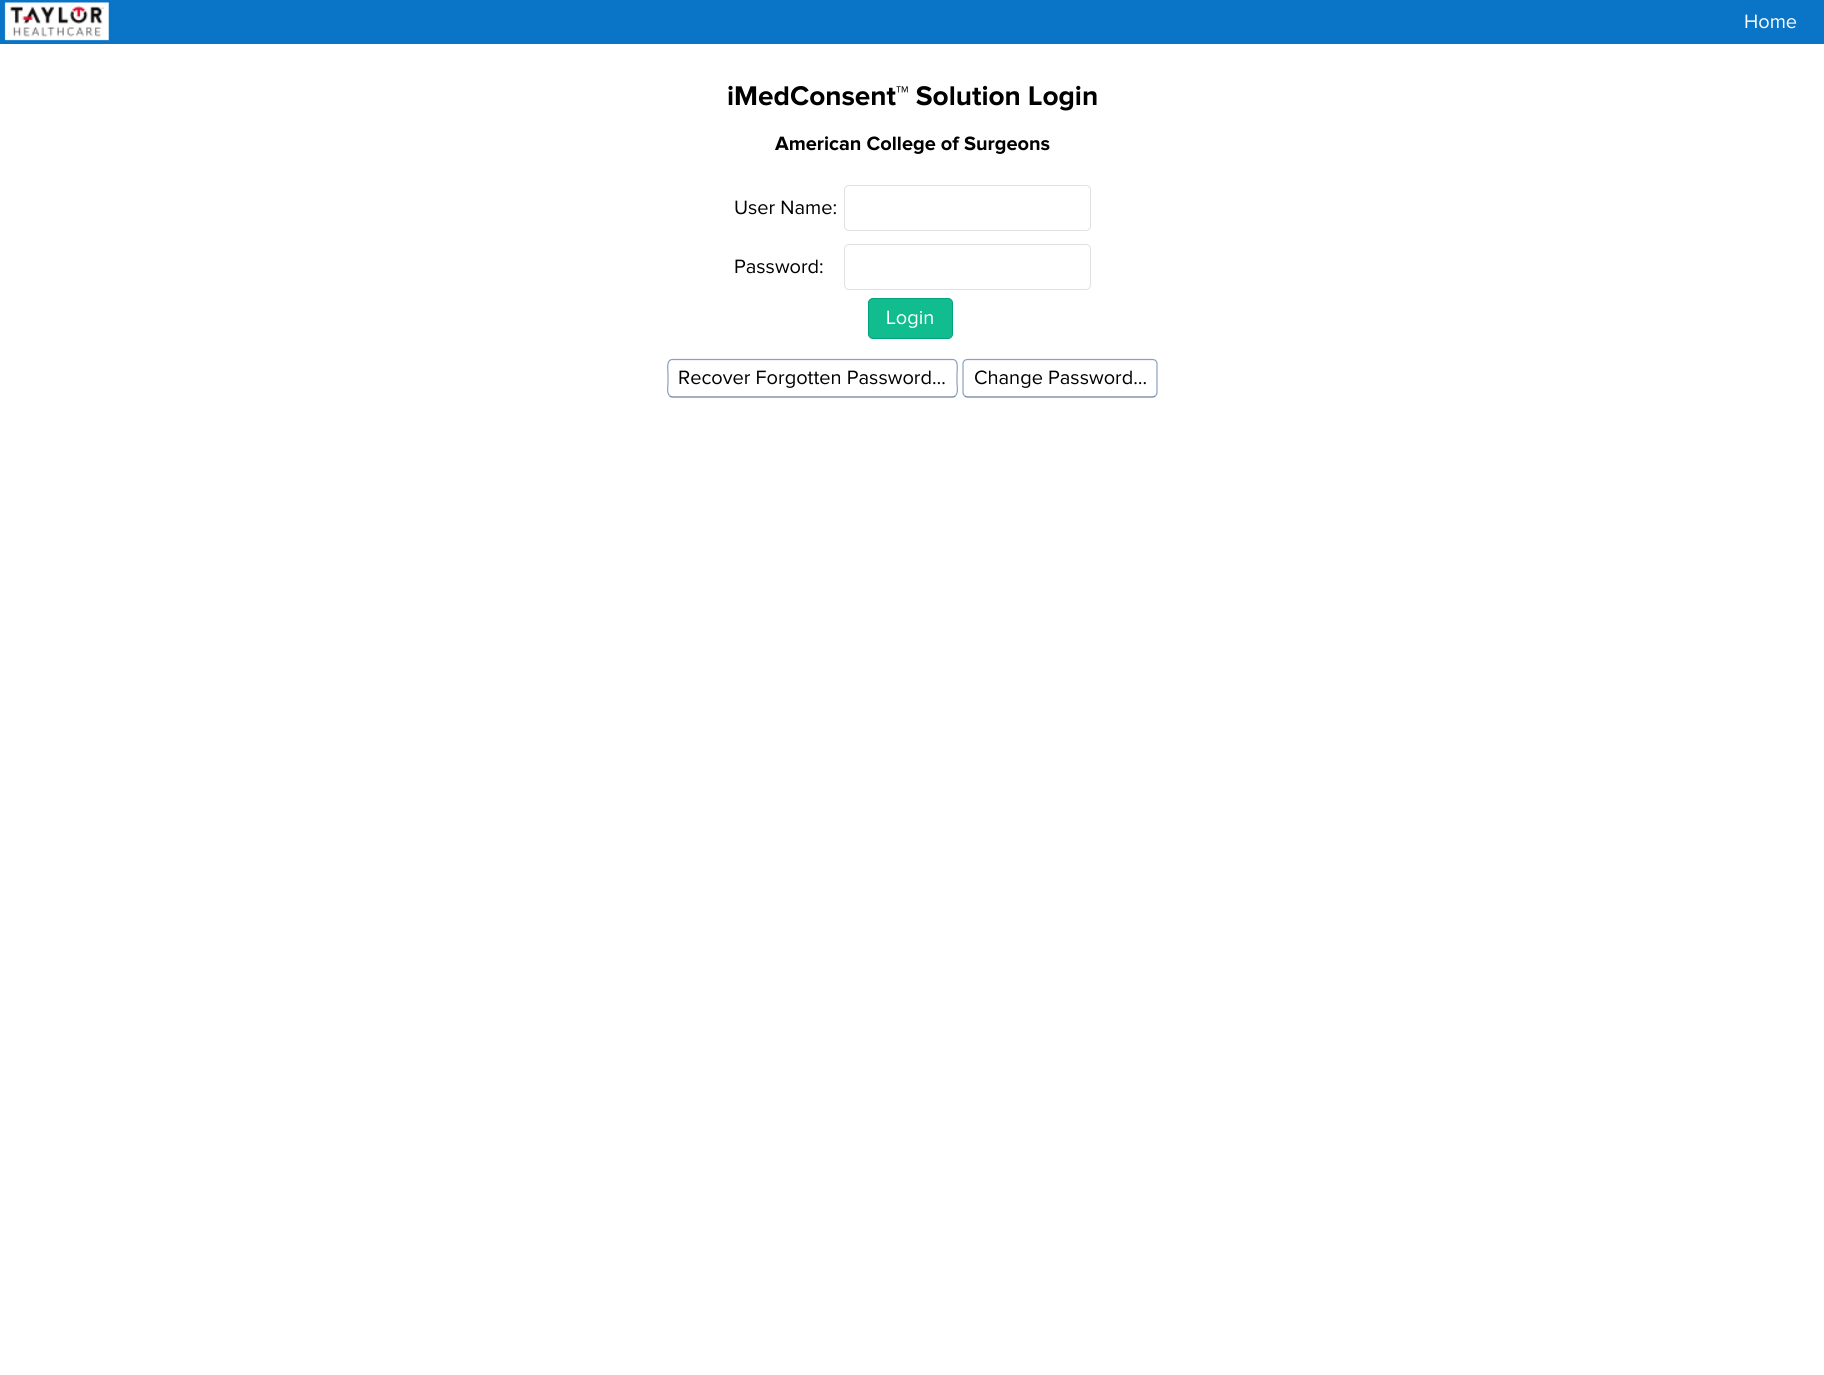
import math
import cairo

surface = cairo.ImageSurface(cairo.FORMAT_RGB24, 1824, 1375)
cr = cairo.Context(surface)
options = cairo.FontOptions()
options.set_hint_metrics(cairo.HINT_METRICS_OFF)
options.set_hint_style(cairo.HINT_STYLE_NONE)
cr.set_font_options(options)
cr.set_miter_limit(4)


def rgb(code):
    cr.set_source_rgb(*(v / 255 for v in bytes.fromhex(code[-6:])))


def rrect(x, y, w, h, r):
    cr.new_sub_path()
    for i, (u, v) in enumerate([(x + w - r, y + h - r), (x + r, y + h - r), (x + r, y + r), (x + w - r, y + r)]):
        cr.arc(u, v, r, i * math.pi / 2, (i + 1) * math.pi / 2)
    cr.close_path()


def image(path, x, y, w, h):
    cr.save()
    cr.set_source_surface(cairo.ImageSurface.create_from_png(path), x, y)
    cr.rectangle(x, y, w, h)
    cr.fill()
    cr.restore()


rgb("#ffffff")
cr.paint()
rgb("#0a74c7")
cr.rectangle(0, 0, 1824, 44)
cr.fill()
image("img/1.png", 4, 2, 105, 39)
rrect(844.5, 185.5, 246, 45, 4.5)
rgb("#dee2e3")
cr.set_line_width(1)
cr.stroke()
rrect(844.5, 244.5, 246, 45, 4.5)
cr.stroke()
rgb("#11bc8f")
rrect(868.5, 298.5, 84, 40, 4.5)
cr.fill_preserve()
rgb("#00a37d")
cr.stroke()
cr.new_path()
cr.move_to(955.5, 395.5)
cr.curve_to(955, 396.5, 953.5, 397, 952.5, 397)
cr.line_to(672.5, 397)
cr.curve_to(671.5, 397, 670, 396.5, 669.5, 395.5)
rgb("#657c9c")
cr.set_line_width(1.2)
cr.stroke()
cr.new_path()
cr.move_to(669.5, 395.5)
cr.curve_to(666.5, 393, 668, 386, 668, 383)
cr.line_to(668, 373.5)
cr.curve_to(668, 370, 666, 359.5, 672.5, 359.5)
cr.line_to(952.5, 359.5)
cr.curve_to(959, 359.5, 957, 370, 957, 373.5)
cr.line_to(957, 383)
cr.curve_to(957, 386, 958.5, 393, 955.5, 395.5)
rgb("#8ba0bd")
cr.stroke()
cr.new_path()
cr.move_to(1155.5, 395.5)
cr.curve_to(1155, 396.5, 1153.5, 397, 1152.5, 397)
cr.line_to(967.5, 397)
cr.curve_to(966.5, 397, 965, 396.5, 964.5, 395.5)
rgb("#657c9c")
cr.stroke()
cr.new_path()
cr.move_to(964.5, 395.5)
cr.curve_to(963.5, 395, 963, 393.5, 963, 392.5)
cr.line_to(963, 364)
cr.curve_to(963, 362.5, 963.5, 361.5, 964.5, 360.5)
cr.curve_to(965, 360, 966.5, 359.5, 967.5, 359.5)
cr.line_to(1152.5, 359.5)
cr.curve_to(1153.5, 359.5, 1155, 360, 1155.5, 360.5)
cr.curve_to(1156.5, 361.5, 1157, 362.5, 1157, 364)
cr.line_to(1157, 392.5)
cr.curve_to(1157, 393.5, 1156.5, 395, 1155.5, 395.5)
rgb("#8ba0bd")
cr.stroke()
cr.select_font_face("Proxima Nova")
cr.set_font_size(20)
rgb("#ffffff")
cr.move_to(1744, 28)
cr.show_text("Home")
cr.select_font_face("Proxima Nova", cairo.FONT_SLANT_NORMAL, cairo.FONT_WEIGHT_BOLD)
cr.set_font_size(28)
rgb("#000000")
cr.move_to(727, 105)
cr.show_text("iMedConsent™ Solution Login")
cr.set_font_size(20)
cr.move_to(775, 150)
cr.show_text("American College of Surgeons")
cr.select_font_face("Proxima Nova")
cr.move_to(734, 214)
cr.show_text("User Name:")
cr.move_to(734, 273)
cr.show_text("Password:")
rgb("#ffffff")
cr.move_to(886, 324)
cr.show_text("Login")
rgb("#000000")
cr.move_to(678, 384)
cr.show_text("Recover Forgotten Password…")
cr.move_to(974, 384)
cr.show_text("Change Password…")
surface.write_to_png("page.png")
